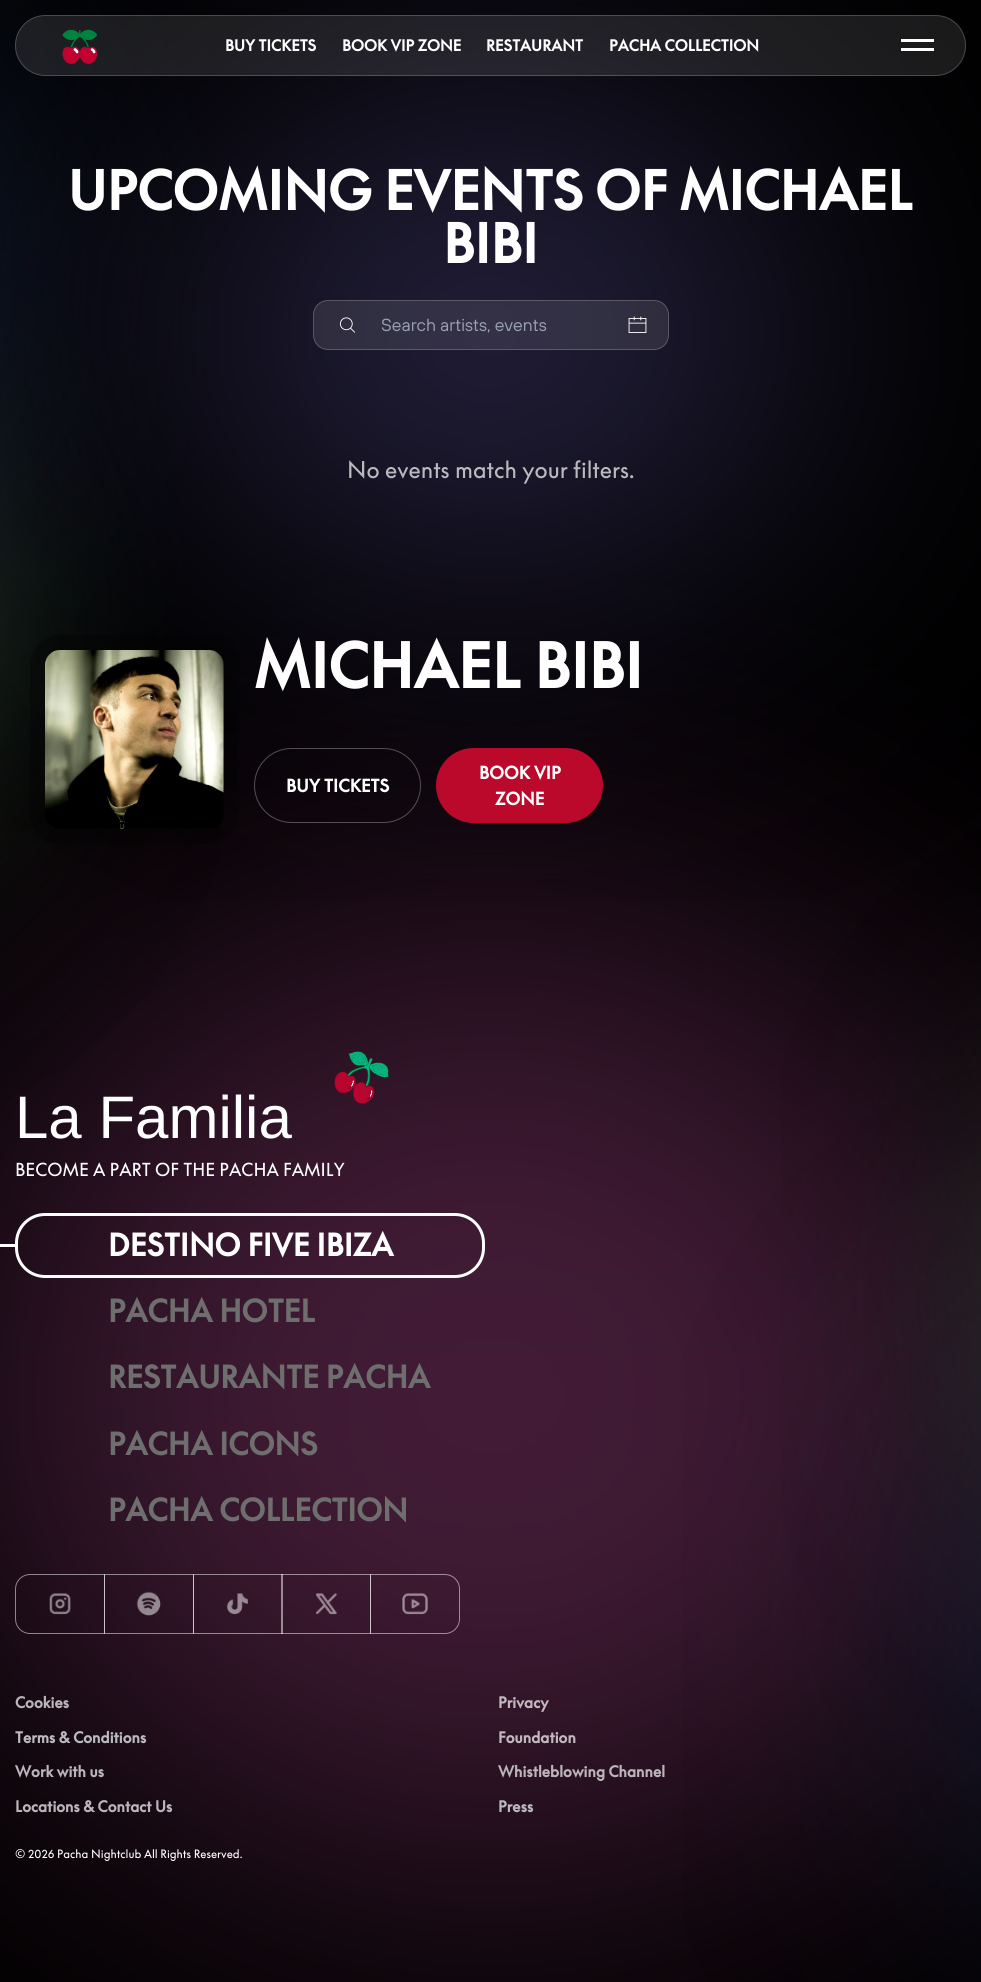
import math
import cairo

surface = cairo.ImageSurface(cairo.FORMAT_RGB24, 981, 1982)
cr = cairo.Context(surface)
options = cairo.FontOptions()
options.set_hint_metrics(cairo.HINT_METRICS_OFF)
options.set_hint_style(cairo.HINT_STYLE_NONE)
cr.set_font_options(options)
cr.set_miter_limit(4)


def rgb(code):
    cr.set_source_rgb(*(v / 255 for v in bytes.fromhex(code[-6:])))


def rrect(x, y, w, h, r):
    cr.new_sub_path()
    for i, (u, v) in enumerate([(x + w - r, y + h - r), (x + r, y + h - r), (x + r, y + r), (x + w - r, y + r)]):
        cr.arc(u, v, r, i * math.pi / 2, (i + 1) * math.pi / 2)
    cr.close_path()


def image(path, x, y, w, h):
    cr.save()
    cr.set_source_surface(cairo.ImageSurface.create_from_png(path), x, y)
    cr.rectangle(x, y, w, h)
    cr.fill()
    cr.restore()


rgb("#ffffff")
cr.paint()
image("img/1.png", 0, 0, 981, 1982)
cr.set_source_rgba(1, 1, 1, 0.1)
rrect(15, 15, 951, 61, 30.5)
cr.fill()
rrect(15.5, 15.5, 950, 60, 30)
cr.set_source_rgba(1, 1, 1, 0.2)
cr.set_line_width(1)
cr.stroke()
image("img/2.png", 62, 29, 36, 35)
rgb("#ffffff")
cr.rectangle(901, 39, 33, 3)
cr.fill()
cr.rectangle(901, 48, 33, 3)
cr.fill()
cr.set_source_rgba(1, 1, 1, 0.1)
rrect(313, 300, 356, 50, 15)
cr.fill()
rrect(313.5, 300.5, 355, 49, 14.5)
cr.set_source_rgba(0.6, 0.6, 0.6, 0.4)
cr.stroke()
image("img/3.png", 339, 317, 17, 16)
image("img/4.png", 628, 316, 19, 17)
cr.set_source_rgba(0, 0, 0, 0.3)
rrect(30, 635, 209, 209, 30)
cr.fill()
image("img/5.png", 45, 650, 179, 179)
rrect(254.5, 748.5, 166, 74, 37)
cr.set_source_rgba(0.6, 0.6, 0.6, 0.5)
cr.stroke()
rgb("#bb092c")
rrect(436, 748, 167, 75, 37.5)
cr.fill()
image("img/6.png", 334, 1051, 55, 53)
cr.set_source_rgba(0.051, 0.165, 0.216, 0.1)
cr.rectangle(15, 1278, 908, 1)
cr.fill()
rrect(16.5, 1214.5, 467, 62, 28.5)
rgb("#ffffff")
cr.set_line_width(3)
cr.stroke()
cr.rectangle(0, 1244, 18, 3)
cr.fill()
cr.set_source_rgba(0.051, 0.165, 0.216, 0.1)
cr.rectangle(15, 1344, 923, 1)
cr.fill()
cr.rectangle(15, 1410, 907, 1)
cr.fill()
cr.rectangle(15, 1476, 894, 1)
cr.fill()
cr.rectangle(15, 1543, 870, 1)
cr.fill()
cr.new_path()
cr.move_to(30, 1574.5)
cr.line_to(104.5, 1574.5)
cr.line_to(104.5, 1633.5)
cr.line_to(30, 1633.5)
cr.curve_to(22, 1633.5, 15.5, 1627, 15.5, 1619)
cr.line_to(15.5, 1589)
cr.curve_to(15.5, 1581, 22, 1574.5, 30, 1574.5)
cr.close_path()
cr.set_source_rgba(1, 1, 1, 0.5)
cr.set_line_width(1)
cr.stroke()
image("img/7.png", 49, 1593, 22, 22)
cr.rectangle(104.5, 1574.5, 89, 59)
cr.stroke()
image("img/8.png", 136, 1591, 25, 25)
cr.rectangle(193.5, 1574.5, 89, 59)
cr.stroke()
image("img/9.png", 227, 1593, 21, 22)
cr.rectangle(281.5, 1574.5, 89, 59)
cr.stroke()
image("img/10.png", 316, 1593, 21, 22)
cr.new_path()
cr.move_to(370.5, 1574.5)
cr.line_to(445, 1574.5)
cr.curve_to(453, 1574.5, 459.5, 1581, 459.5, 1589)
cr.line_to(459.5, 1619)
cr.curve_to(459.5, 1627, 453, 1633.5, 445, 1633.5)
cr.line_to(370.5, 1633.5)
cr.close_path()
cr.stroke()
image("img/11.png", 402, 1593, 26, 22)
cr.select_font_face("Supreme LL", cairo.FONT_SLANT_NORMAL, cairo.FONT_WEIGHT_BOLD)
cr.set_font_size(15)
rgb("#ffffff")
for x, y, s in [
    (225, 51, "BUY TICKETS"),
    (342, 51, "BOOK VIP ZONE"),
    (486, 51, "RESTAURANT"),
    (609, 51, "PACHA COLLECTION"),
]:
    cr.move_to(x, y)
    cr.show_text(s)
cr.set_font_size(52.5)
cr.move_to(68, 210)
cr.show_text("UPCOMING EVENTS OF MICHAEL")
cr.move_to(443, 263)
cr.show_text("BIBI")
cr.select_font_face("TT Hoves")
cr.set_font_size(17.5)
rgb("#99a1af")
cr.move_to(381, 331)
cr.show_text("Search artists, events")
cr.select_font_face("Supreme LL")
cr.set_font_size(22.5)
rgb("#b9b9be")
cr.move_to(347, 478)
cr.show_text("No events match your filters.")
cr.select_font_face("Supreme LL", cairo.FONT_SLANT_NORMAL, cairo.FONT_WEIGHT_BOLD)
cr.set_font_size(60)
rgb("#ffffff")
cr.move_to(254, 688)
cr.show_text("MICHAEL BIBI")
cr.set_font_size(17)
for x, y, s in [
    (286, 792, "BUY TICKETS"),
    (479, 779, "BOOK VIP"),
    (495, 805, "ZONE"),
]:
    cr.move_to(x, y)
    cr.show_text(s)
cr.select_font_face("Liberation Sans")
cr.set_font_size(60)
cr.move_to(15, 1138)
cr.show_text("La Familia")
cr.select_font_face("Supreme LL")
cr.set_font_size(17.5)
cr.move_to(15, 1176)
cr.show_text("BECOME A PART OF THE PACHA FAMILY")
cr.select_font_face("Supreme LL", cairo.FONT_SLANT_NORMAL, cairo.FONT_WEIGHT_BOLD)
cr.set_font_size(30)
cr.move_to(108, 1256)
cr.show_text("DESTINO FIVE IBIZA")
rgb("#6e6e6e")
for x, y, s in [
    (108, 1322, "PACHA HOTEL"),
    (108, 1388, "RESTAURANTE PACHA"),
    (108, 1455, "PACHA ICONS"),
    (108, 1521, "PACHA COLLECTION"),
]:
    cr.move_to(x, y)
    cr.show_text(s)
cr.set_font_size(15)
rgb("#bab5b8")
cr.move_to(15, 1708)
cr.show_text("Cookies")
rgb("#c2b9bf")
cr.move_to(498, 1708)
cr.show_text("Privacy")
rgb("#b9b9be")
cr.move_to(15, 1743)
cr.show_text("Terms & Conditions")
rgb("#c2b9bf")
cr.move_to(498, 1743)
cr.show_text("Foundation")
rgb("#bab5b8")
for x, y, s in [
    (15, 1777, "Work with us"),
    (498, 1777, "Whistleblowing Channel"),
    (15, 1812, "Locations & Contact Us"),
]:
    cr.move_to(x, y)
    cr.show_text(s)
rgb("#b9b9be")
cr.move_to(498, 1812)
cr.show_text("Press")
cr.select_font_face("Supreme LL")
cr.set_font_size(11.25)
rgb("#ffffff")
cr.move_to(15, 1858)
cr.show_text("© 2026 Pacha Nightclub All Rights Reserved.")
surface.write_to_png("page.png")
